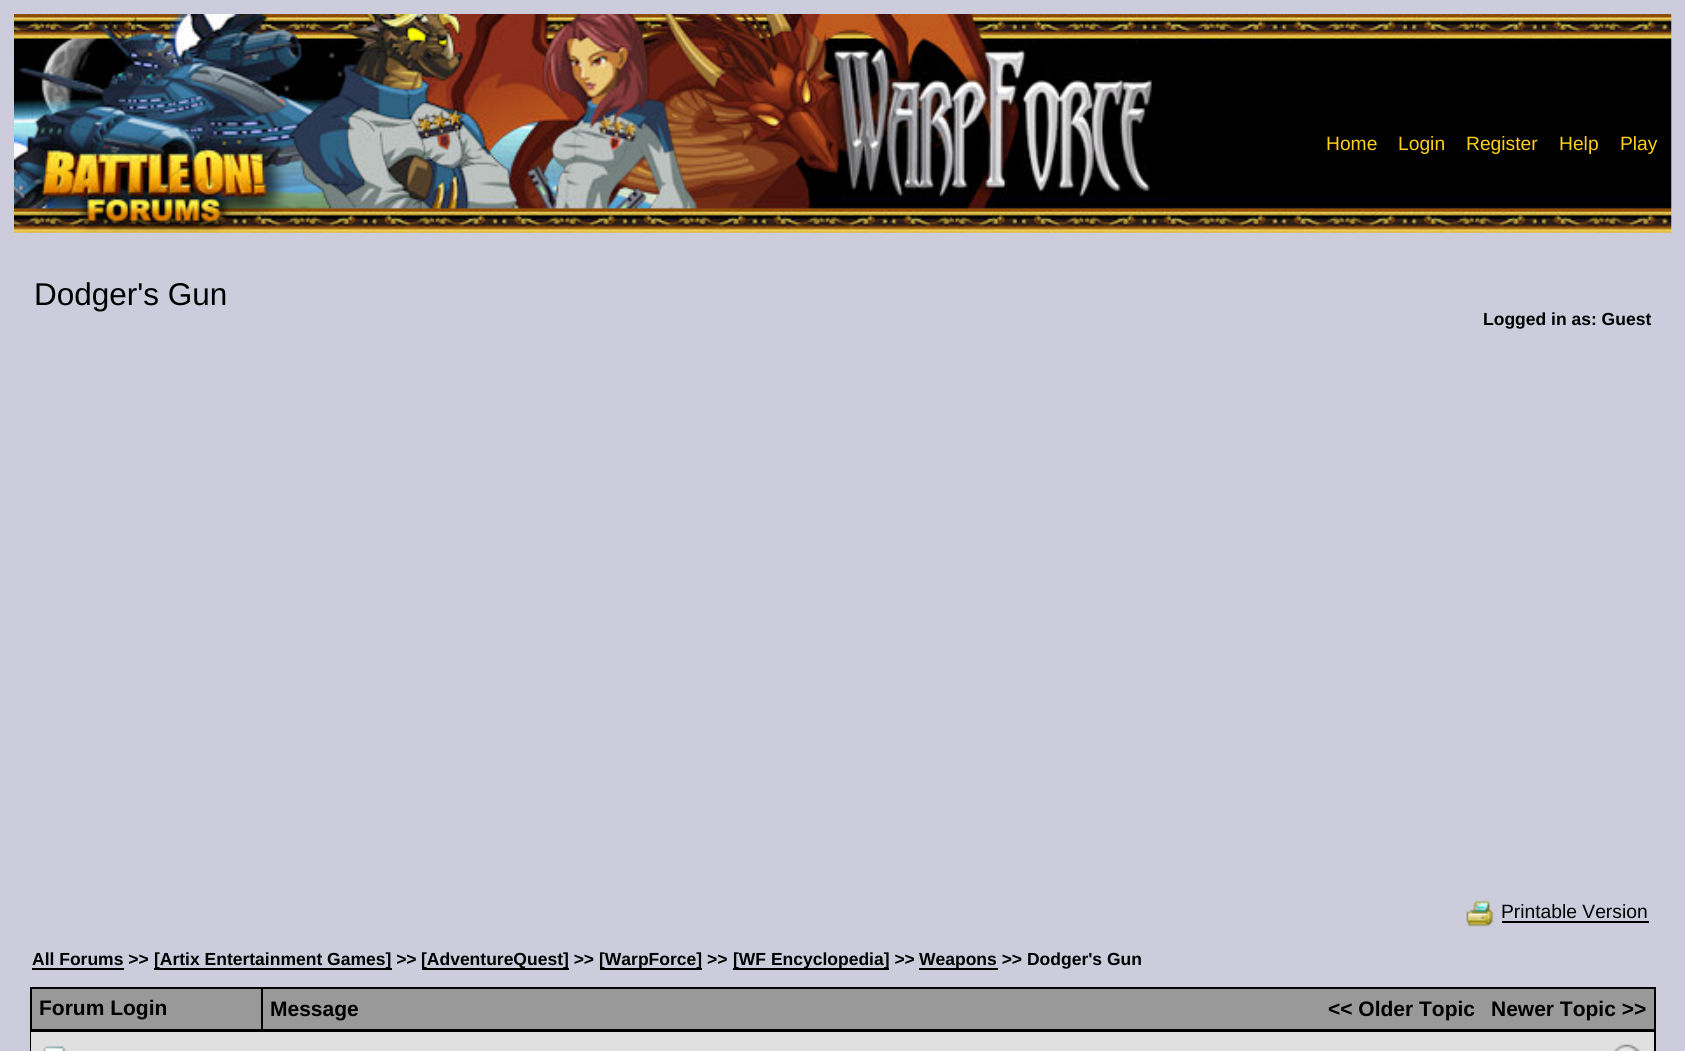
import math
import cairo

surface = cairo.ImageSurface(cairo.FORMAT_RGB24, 1685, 1051)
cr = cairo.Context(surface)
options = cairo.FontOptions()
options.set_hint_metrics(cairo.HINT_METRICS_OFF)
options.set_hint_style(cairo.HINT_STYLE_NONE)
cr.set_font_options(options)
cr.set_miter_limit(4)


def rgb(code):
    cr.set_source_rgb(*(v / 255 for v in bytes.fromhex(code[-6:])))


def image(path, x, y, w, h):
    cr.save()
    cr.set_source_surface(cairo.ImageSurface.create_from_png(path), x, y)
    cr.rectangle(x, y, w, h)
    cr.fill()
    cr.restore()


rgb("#ccccdd")
cr.paint()
image("img/1.png", 14, 14, 1658, 219)
image("img/2.png", 1466, 900, 28, 27)
for x, y, w, h, color in [
    (1502, 921, 147, 2, "#000000"),
    (32, 968, 92, 2, "#000000"),
    (154, 968, 238, 2, "#000000"),
    (422, 968, 147, 2, "#000000"),
    (600, 968, 102, 2, "#000000"),
    (733, 968, 156, 2, "#000000"),
    (919, 968, 79, 2, "#000000"),
    (30, 987, 1626, 64, "#000000"),
    (32, 989, 229, 40, "#999999"),
    (263, 989, 1391, 40, "#999999"),
    (31, 1032, 1623, 19, "#e0e0e0"),
]:
    rgb(color)
    cr.rectangle(x, y, w, h)
    cr.fill()
image("img/3.png", 43, 1046, 23, 5)
image("img/4.png", 1613, 1044, 27, 7)
cr.select_font_face("Liberation Sans")
cr.set_font_size(19.25)
rgb("#fdd017")
for x, y, s in [
    (1326, 150, "Home"),
    (1398, 150, "Login"),
    (1466, 150, "Register"),
    (1559, 150, "Help"),
    (1620, 150, "Play"),
]:
    cr.move_to(x, y)
    cr.show_text(s)
cr.set_font_size(31.5)
rgb("#000000")
cr.move_to(34, 305)
cr.show_text("Dodger's Gun")
cr.select_font_face("Liberation Sans", cairo.FONT_SLANT_NORMAL, cairo.FONT_WEIGHT_BOLD)
cr.set_font_size(17.5)
cr.move_to(1483, 325)
cr.show_text("Logged in as: Guest")
cr.select_font_face("Liberation Sans")
cr.set_font_size(19.25)
cr.move_to(1501, 918)
cr.show_text("Printable Version")
cr.select_font_face("Liberation Sans", cairo.FONT_SLANT_NORMAL, cairo.FONT_WEIGHT_BOLD)
cr.set_font_size(17.5)
for x, y, s in [
    (32, 965, "All Forums >>"),
    (154, 965, "[Artix Entertainment Games] >>"),
    (421, 965, "[AdventureQuest] >>"),
    (599, 965, "[WarpForce] >>"),
    (733, 965, "[WF Encyclopedia] >>"),
    (919, 965, "Weapons >> Dodger's Gun"),
]:
    cr.move_to(x, y)
    cr.show_text(s)
cr.set_font_size(21)
for x, y, s in [
    (39, 1015, "Forum Login"),
    (270, 1016, "Message"),
    (1328, 1016, "<< Older Topic"),
    (1491, 1016, "Newer Topic >>"),
]:
    cr.move_to(x, y)
    cr.show_text(s)
surface.write_to_png("page.png")
